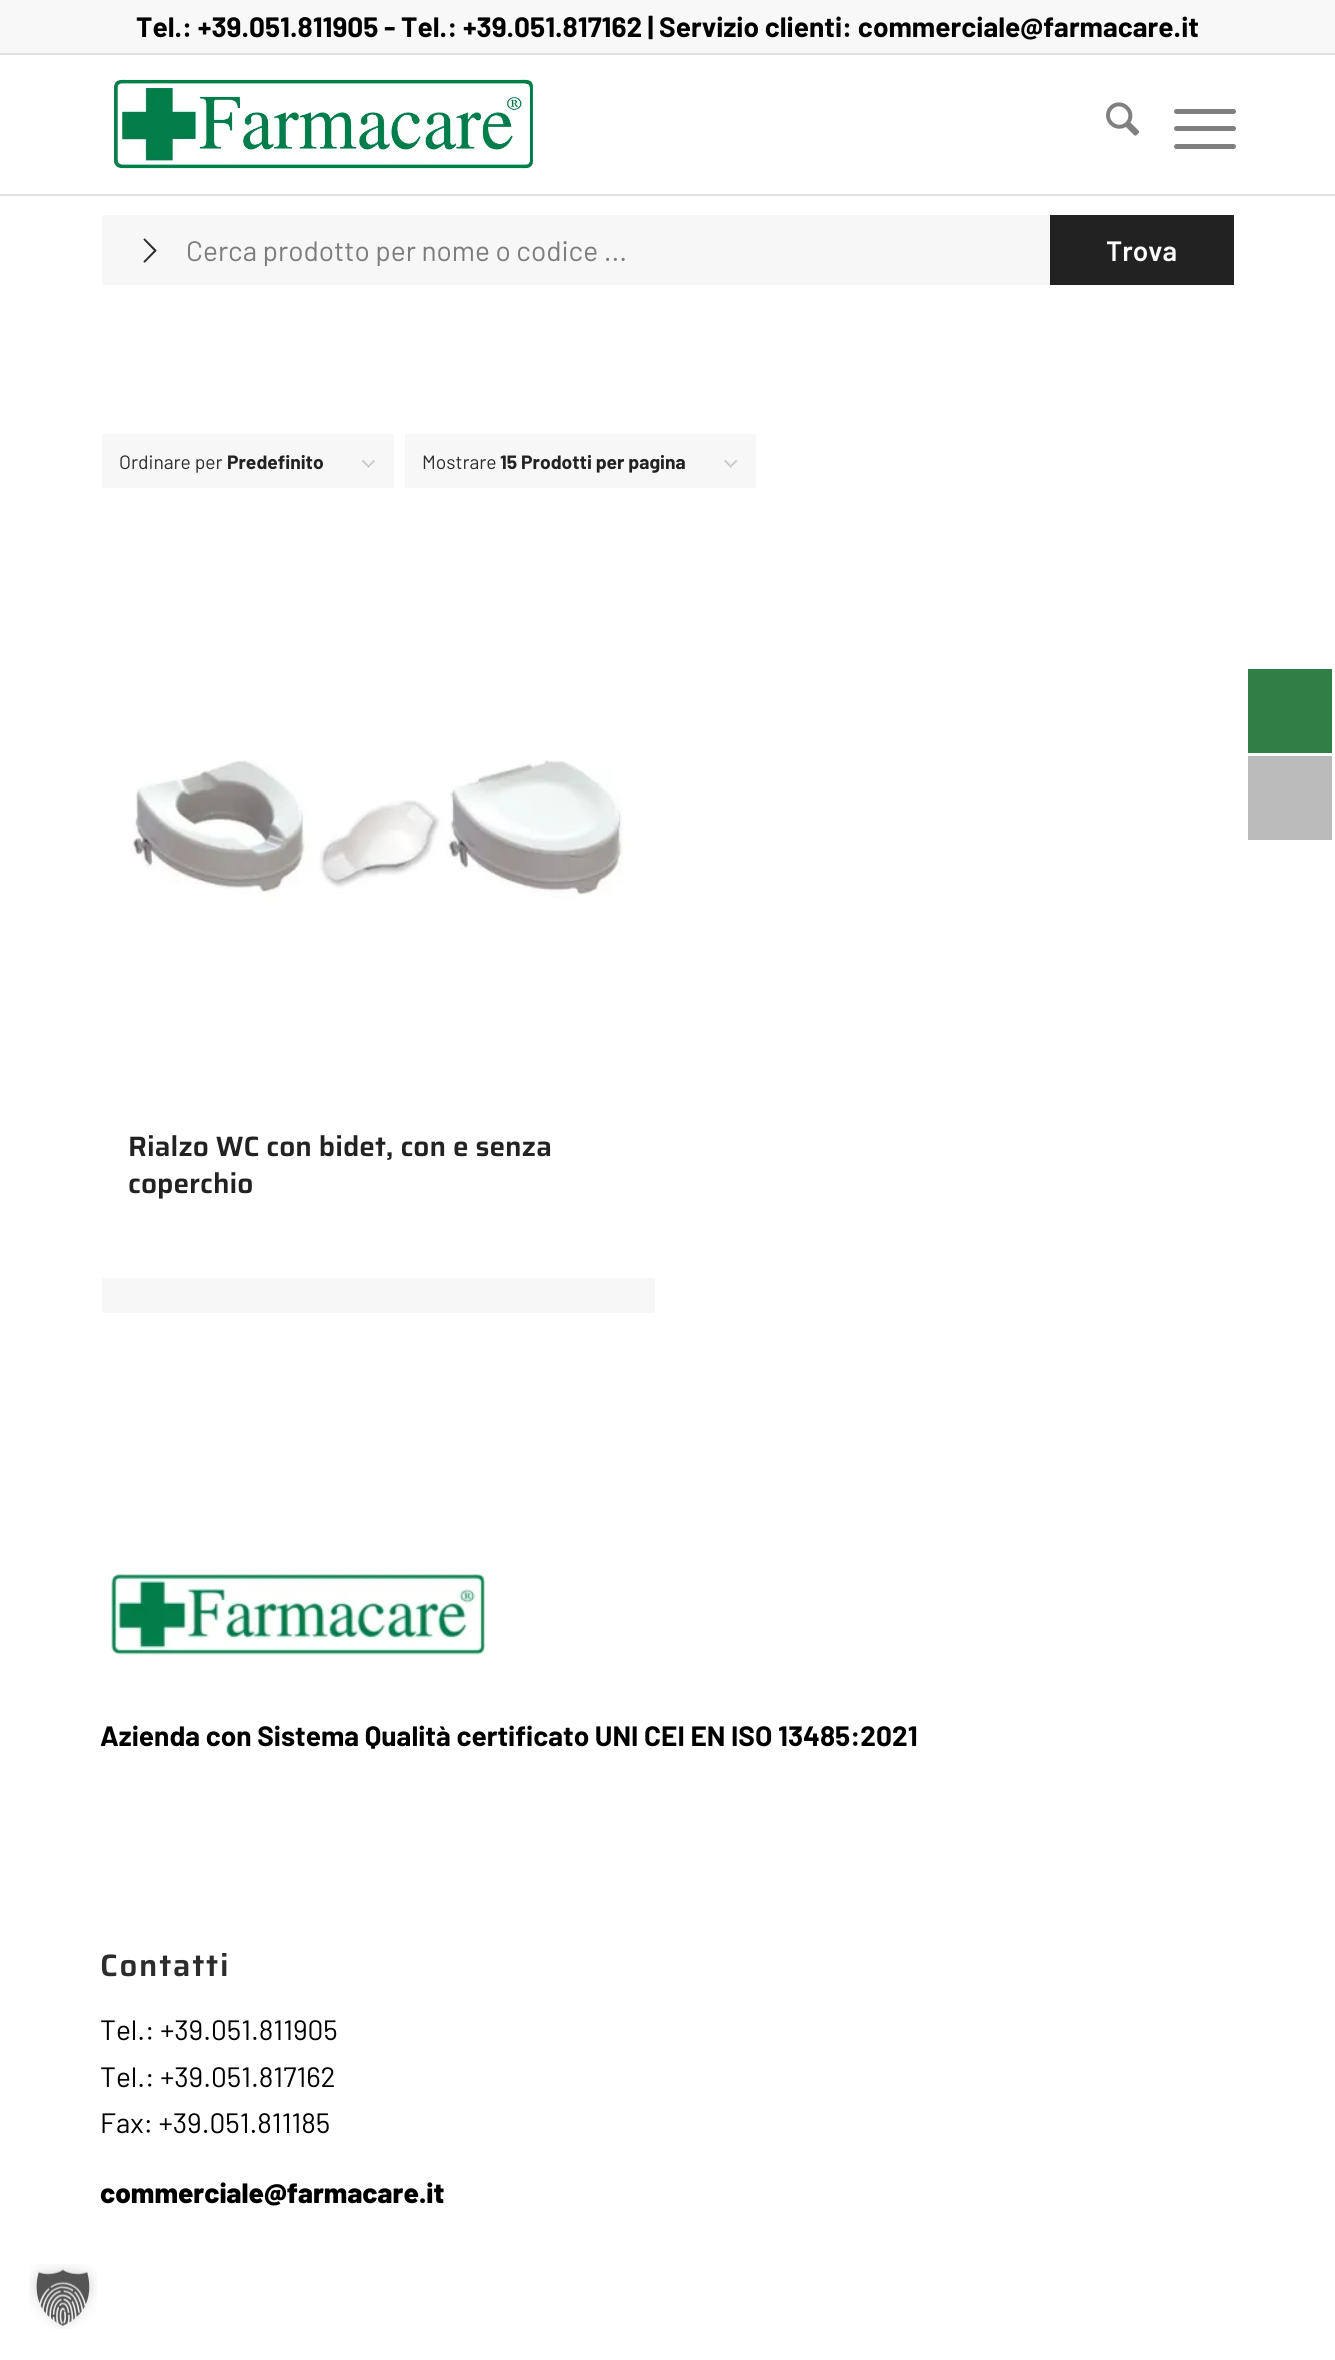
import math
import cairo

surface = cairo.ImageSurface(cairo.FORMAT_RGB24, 1335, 2360)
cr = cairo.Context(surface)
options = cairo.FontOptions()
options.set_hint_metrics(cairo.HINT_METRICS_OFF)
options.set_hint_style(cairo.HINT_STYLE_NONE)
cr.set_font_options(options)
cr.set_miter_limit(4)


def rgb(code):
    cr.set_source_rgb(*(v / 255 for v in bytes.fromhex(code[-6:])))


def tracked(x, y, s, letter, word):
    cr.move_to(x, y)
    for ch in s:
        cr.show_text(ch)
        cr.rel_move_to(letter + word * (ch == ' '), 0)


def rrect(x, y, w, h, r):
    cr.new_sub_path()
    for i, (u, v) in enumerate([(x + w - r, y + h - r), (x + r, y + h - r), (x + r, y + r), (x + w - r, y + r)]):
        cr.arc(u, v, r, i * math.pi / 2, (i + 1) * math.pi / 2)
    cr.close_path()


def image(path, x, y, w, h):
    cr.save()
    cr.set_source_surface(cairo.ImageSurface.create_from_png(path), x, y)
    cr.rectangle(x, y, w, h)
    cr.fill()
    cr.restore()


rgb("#ffffff")
cr.paint()
for x, y, w, h, color in [
    (0, 0, 1335, 53, "#f8f8f8"),
    (0, 53, 1335, 2, "#e1e1e1"),
    (0, 194, 1335, 2, "#e1e1e1"),
]:
    rgb(color)
    cr.rectangle(x, y, w, h)
    cr.fill()
image("img/1.png", 114, 79, 419, 90)
image("img/2.png", 1106, 102, 33, 34)
rgb("#808080")
rrect(1174, 126, 62, 5, 2.5)
cr.fill()
rrect(1174, 109, 62, 5, 2.5)
cr.fill()
rrect(1174, 144, 62, 5, 2.5)
cr.fill()
rgb("#f7f7f7")
cr.rectangle(102, 215, 948, 70)
cr.fill()
image("img/3.png", 143, 238, 14, 25)
rgb("#222222")
cr.rectangle(1050, 215, 184, 70)
cr.fill()
rgb("#f7f7f7")
cr.rectangle(102, 434, 292, 54)
cr.fill()
image("img/4.png", 362, 460, 13, 8)
cr.rectangle(405, 434, 351, 54)
cr.fill()
image("img/5.png", 724, 460, 14, 8)
image("img/6.png", 131, 760, 496, 139)
cr.new_path()
cr.move_to(102, 1276)
cr.line_to(655, 1276)
cr.line_to(655, 1311)
cr.curve_to(655, 1312, 654, 1313, 653, 1313)
cr.line_to(104, 1313)
cr.curve_to(103, 1313, 102, 1312, 102, 1311)
cr.close_path()
cr.fill()
rgb("#ffffff")
cr.rectangle(102, 1276, 553, 2)
cr.fill()
image("img/7.png", 111, 1574, 375, 81)
rgb("#327e47")
cr.rectangle(1248, 669, 84, 84)
cr.fill()
rgb("#bababa")
cr.rectangle(1248, 756, 84, 84)
cr.fill()
image("img/8.png", 29, 2264, 68, 65)
cr.select_font_face("Barlow", cairo.FONT_SLANT_NORMAL, cairo.FONT_WEIGHT_BOLD)
cr.set_font_size(28)
rgb("#000000")
cr.move_to(136, 37)
cr.show_text("Tel.: +39.051.811905 - Tel.: +39.051.817162 | Servizio clienti: commerciale@farmacare.it")
cr.save()
cr.rectangle(186, 233, 980, 33)
cr.clip()
cr.select_font_face("Barlow")
rgb("#7c7c7c")
cr.move_to(186, 261)
cr.show_text("Cerca prodotto per nome o codice ...")
cr.restore()
cr.select_font_face("Barlow SemiBold")
rgb("#ffffff")
cr.move_to(1106, 261)
cr.show_text("Trova")
cr.select_font_face("Barlow")
cr.set_font_size(19.25)
rgb("#2c2c2c")
cr.move_to(119, 469)
cr.show_text("Ordinare per")
cr.select_font_face("Barlow", cairo.FONT_SLANT_NORMAL, cairo.FONT_WEIGHT_BOLD)
rgb("#222222")
cr.move_to(227, 469)
cr.show_text("Predefinito")
cr.select_font_face("Barlow")
rgb("#2c2c2c")
cr.move_to(422, 469)
cr.show_text("Mostrare")
cr.select_font_face("Barlow", cairo.FONT_SLANT_NORMAL, cairo.FONT_WEIGHT_BOLD)
rgb("#222222")
cr.move_to(500, 469)
cr.show_text("15 Prodotti per pagina")
cr.select_font_face("Saira SemiBold")
cr.set_font_size(28)
cr.move_to(128, 1156)
cr.show_text("Rialzo WC con bidet, con e senza")
cr.move_to(128, 1193)
cr.show_text("coperchio")
cr.select_font_face("Barlow", cairo.FONT_SLANT_NORMAL, cairo.FONT_WEIGHT_BOLD)
rgb("#000000")
cr.move_to(100, 1746)
cr.show_text("Azienda con Sistema Qualità certificato UNI CEI EN ISO 13485:2021")
cr.select_font_face("Saira SemiBold")
cr.set_font_size(31)
rgb("#2c2c2c")
tracked(100, 1976, "Contatti", 1.75, 0)
cr.select_font_face("Barlow")
cr.set_font_size(28)
rgb("#000000")
for x, y, s in [
    (100, 2040, "Tel.: +39.051.811905"),
    (100, 2087, "Tel.: +39.051.817162"),
    (100, 2133, "Fax: +39.051.811185"),
]:
    cr.move_to(x, y)
    cr.show_text(s)
cr.select_font_face("Barlow ExtraBold")
cr.move_to(100, 2203)
cr.show_text("commerciale@farmacare.it")
surface.write_to_png("page.png")
